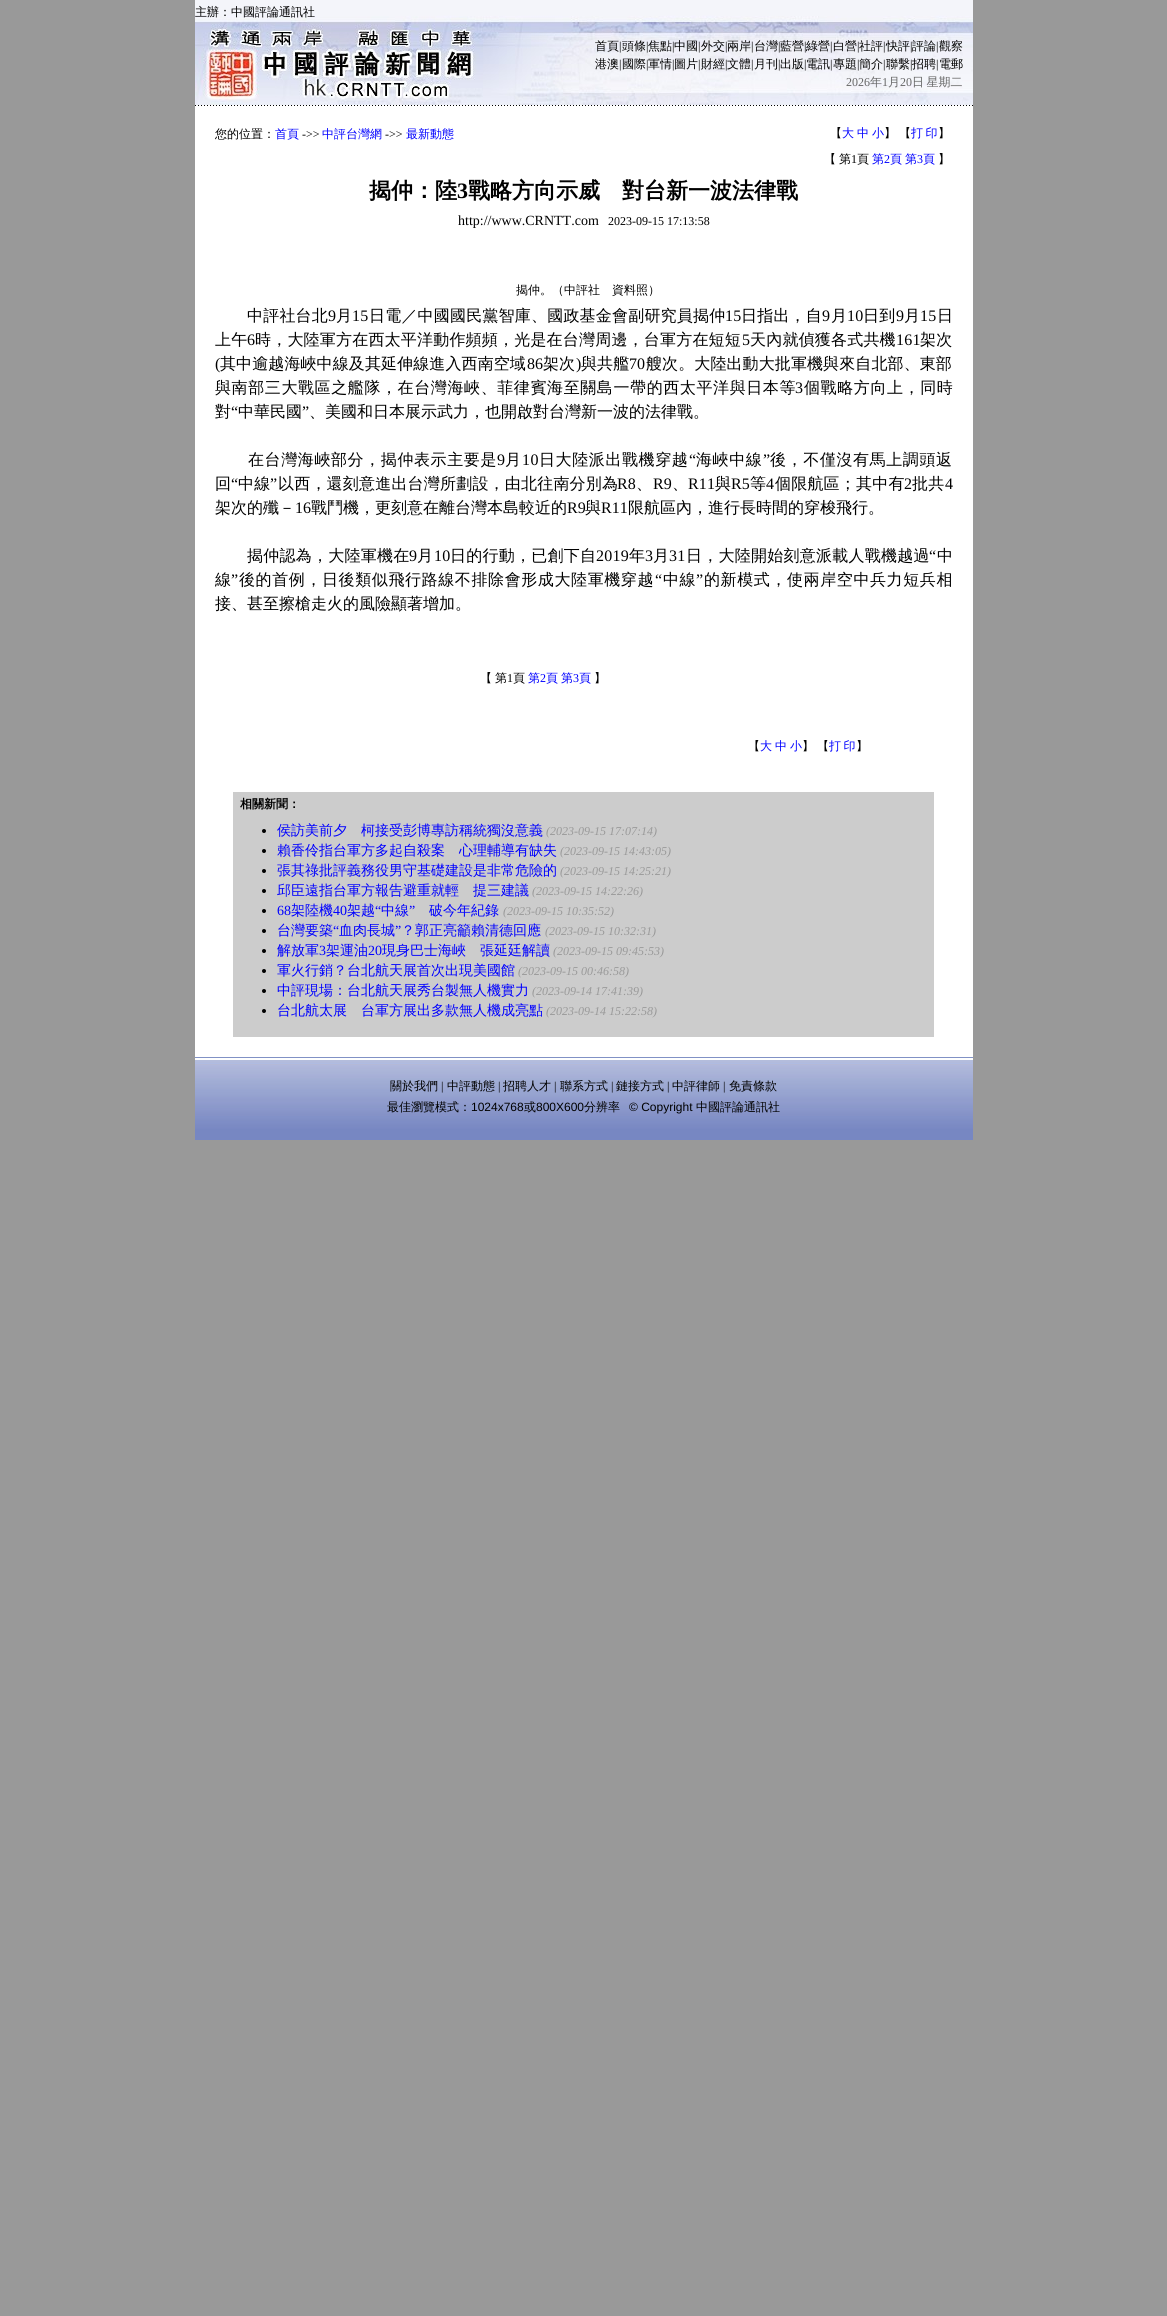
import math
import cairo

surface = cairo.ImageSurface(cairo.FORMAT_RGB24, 1167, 2316)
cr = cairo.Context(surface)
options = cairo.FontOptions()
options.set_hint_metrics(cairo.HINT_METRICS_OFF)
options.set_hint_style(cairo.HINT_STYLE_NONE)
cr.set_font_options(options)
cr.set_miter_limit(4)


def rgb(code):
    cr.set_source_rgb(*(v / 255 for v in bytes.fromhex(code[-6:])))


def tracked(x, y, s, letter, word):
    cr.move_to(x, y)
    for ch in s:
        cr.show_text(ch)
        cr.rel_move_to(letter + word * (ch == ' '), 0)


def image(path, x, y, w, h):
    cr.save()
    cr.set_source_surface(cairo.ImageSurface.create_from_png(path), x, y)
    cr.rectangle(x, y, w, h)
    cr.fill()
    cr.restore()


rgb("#999999")
cr.paint()
image("img/1.png", 195, 0, 778, 105)
image("img/2.png", 195, 105, 778, 1)
rgb("#ffffff")
cr.rectangle(195, 106, 778, 951)
cr.fill()
rgb("#cccccc")
cr.rectangle(233, 792, 701, 245)
cr.fill()
rgb("#000000")
cr.arc(264, 831, 2, 0, 2 * math.pi)
cr.fill()
cr.arc(264, 851, 2, 0, 2 * math.pi)
cr.fill()
cr.arc(264, 871, 2, 0, 2 * math.pi)
cr.fill()
cr.arc(264, 891, 2, 0, 2 * math.pi)
cr.fill()
cr.arc(264, 911, 2, 0, 2 * math.pi)
cr.fill()
cr.arc(264, 931, 2, 0, 2 * math.pi)
cr.fill()
cr.arc(264, 951, 2, 0, 2 * math.pi)
cr.fill()
cr.arc(264, 971, 2, 0, 2 * math.pi)
cr.fill()
cr.arc(264, 991, 2, 0, 2 * math.pi)
cr.fill()
cr.arc(264, 1011, 2, 0, 2 * math.pi)
cr.fill()
image("img/3.png", 195, 1057, 778, 83)
cr.select_font_face("WenQuanYi Zen Hei Medium")
cr.set_font_size(12)
cr.move_to(195, 16)
cr.show_text("主辦：中國評論通訊社")
cr.move_to(595, 50)
cr.show_text("首頁")
cr.select_font_face("Liberation Serif")
cr.move_to(619, 50)
cr.show_text("|")
cr.select_font_face("WenQuanYi Zen Hei Medium")
cr.move_to(622, 50)
cr.show_text("頭條")
cr.select_font_face("Liberation Serif")
cr.move_to(646, 50)
cr.show_text("|")
cr.select_font_face("WenQuanYi Zen Hei Medium")
cr.move_to(648, 50)
cr.show_text("焦點")
cr.select_font_face("Liberation Serif")
cr.move_to(672, 50)
cr.show_text("|")
cr.select_font_face("WenQuanYi Zen Hei Medium")
cr.move_to(674, 50)
cr.show_text("中國")
cr.select_font_face("Liberation Serif")
cr.move_to(698, 50)
cr.show_text("|")
cr.select_font_face("WenQuanYi Zen Hei Medium")
cr.move_to(701, 50)
cr.show_text("外交")
cr.select_font_face("Liberation Serif")
cr.move_to(725, 50)
cr.show_text("|")
cr.select_font_face("WenQuanYi Zen Hei Medium")
cr.move_to(727, 50)
cr.show_text("兩岸")
cr.select_font_face("Liberation Serif")
cr.move_to(751, 50)
cr.show_text("|")
cr.select_font_face("WenQuanYi Zen Hei Medium")
cr.move_to(754, 50)
cr.show_text("台灣")
cr.select_font_face("Liberation Serif")
cr.move_to(778, 50)
cr.show_text("|")
cr.select_font_face("WenQuanYi Zen Hei Medium")
cr.move_to(780, 50)
cr.show_text("藍營")
cr.select_font_face("Liberation Serif")
cr.move_to(804, 50)
cr.show_text("|")
cr.select_font_face("WenQuanYi Zen Hei Medium")
cr.move_to(806, 50)
cr.show_text("綠營")
cr.select_font_face("Liberation Serif")
cr.move_to(830, 50)
cr.show_text("|")
cr.select_font_face("WenQuanYi Zen Hei Medium")
cr.move_to(833, 50)
cr.show_text("白營")
cr.select_font_face("Liberation Serif")
cr.move_to(857, 50)
cr.show_text("|")
cr.select_font_face("WenQuanYi Zen Hei Medium")
cr.move_to(859, 50)
cr.show_text("社評")
cr.select_font_face("Liberation Serif")
cr.move_to(883, 50)
cr.show_text("|")
cr.select_font_face("WenQuanYi Zen Hei Medium")
cr.move_to(886, 50)
cr.show_text("快評")
cr.select_font_face("Liberation Serif")
cr.move_to(910, 50)
cr.show_text("|")
cr.select_font_face("WenQuanYi Zen Hei Medium")
cr.move_to(912, 50)
cr.show_text("評論")
cr.select_font_face("Liberation Serif")
cr.move_to(936, 50)
cr.show_text("|")
cr.select_font_face("WenQuanYi Zen Hei Medium")
cr.move_to(939, 50)
cr.show_text("觀察")
cr.move_to(595, 68)
cr.show_text("港澳")
cr.select_font_face("Liberation Serif")
cr.move_to(619, 68)
cr.show_text("|")
cr.select_font_face("WenQuanYi Zen Hei Medium")
cr.move_to(622, 68)
cr.show_text("國際")
cr.select_font_face("Liberation Serif")
cr.move_to(646, 68)
cr.show_text("|")
cr.select_font_face("WenQuanYi Zen Hei Medium")
cr.move_to(648, 68)
cr.show_text("軍情")
cr.select_font_face("Liberation Serif")
cr.move_to(672, 68)
cr.show_text("|")
cr.select_font_face("WenQuanYi Zen Hei Medium")
cr.move_to(674, 68)
cr.show_text("圖片")
cr.select_font_face("Liberation Serif")
cr.move_to(698, 68)
cr.show_text("|")
cr.select_font_face("WenQuanYi Zen Hei Medium")
cr.move_to(701, 68)
cr.show_text("財經")
cr.select_font_face("Liberation Serif")
cr.move_to(725, 68)
cr.show_text("|")
cr.select_font_face("WenQuanYi Zen Hei Medium")
cr.move_to(727, 68)
cr.show_text("文體")
cr.select_font_face("Liberation Serif")
cr.move_to(751, 68)
cr.show_text("|")
cr.select_font_face("WenQuanYi Zen Hei Medium")
cr.move_to(754, 68)
cr.show_text("月刊")
cr.select_font_face("Liberation Serif")
cr.move_to(778, 68)
cr.show_text("|")
cr.select_font_face("WenQuanYi Zen Hei Medium")
cr.move_to(780, 68)
cr.show_text("出版")
cr.select_font_face("Liberation Serif")
cr.move_to(804, 68)
cr.show_text("|")
cr.select_font_face("WenQuanYi Zen Hei Medium")
cr.move_to(806, 68)
cr.show_text("電訊")
cr.select_font_face("Liberation Serif")
cr.move_to(830, 68)
cr.show_text("|")
cr.select_font_face("WenQuanYi Zen Hei Medium")
cr.move_to(833, 68)
cr.show_text("專題")
cr.select_font_face("Liberation Serif")
cr.move_to(857, 68)
cr.show_text("|")
cr.select_font_face("WenQuanYi Zen Hei Medium")
cr.move_to(859, 68)
cr.show_text("簡介")
cr.select_font_face("Liberation Serif")
cr.move_to(883, 68)
cr.show_text("|")
cr.select_font_face("WenQuanYi Zen Hei Medium")
cr.move_to(886, 68)
cr.show_text("聯繫")
cr.select_font_face("Liberation Serif")
cr.move_to(910, 68)
cr.show_text("|")
cr.select_font_face("WenQuanYi Zen Hei Medium")
cr.move_to(912, 68)
cr.show_text("招聘")
cr.select_font_face("Liberation Serif")
cr.move_to(936, 68)
cr.show_text("|")
cr.select_font_face("WenQuanYi Zen Hei Medium")
cr.move_to(939, 68)
cr.show_text("電郵")
cr.select_font_face("Liberation Serif")
rgb("#666666")
cr.move_to(846, 86)
cr.show_text("2026")
cr.select_font_face("WenQuanYi Zen Hei Medium")
cr.move_to(870, 86)
cr.show_text("年")
cr.select_font_face("Liberation Serif")
cr.move_to(882, 86)
cr.show_text("1")
cr.select_font_face("WenQuanYi Zen Hei Medium")
cr.move_to(888, 86)
cr.show_text("月")
cr.select_font_face("Liberation Serif")
cr.move_to(900, 86)
cr.show_text("20")
cr.select_font_face("WenQuanYi Zen Hei Medium")
tracked(912, 86, "日 星期二", 0, -1)
rgb("#000000")
cr.move_to(215, 138)
cr.show_text("您的位置：")
rgb("#0000ff")
cr.move_to(275, 138)
cr.show_text("首頁")
cr.select_font_face("Liberation Serif")
rgb("#000000")
cr.move_to(302, 138)
cr.show_text("->>")
cr.select_font_face("WenQuanYi Zen Hei Medium")
rgb("#0000ff")
cr.move_to(322, 138)
cr.show_text("中評台灣網")
cr.select_font_face("Liberation Serif")
rgb("#000000")
cr.move_to(385, 138)
cr.show_text("->>")
cr.select_font_face("WenQuanYi Zen Hei Medium")
rgb("#0000ff")
cr.move_to(406, 138)
cr.show_text("最新動態")
rgb("#000000")
cr.move_to(830, 137)
cr.show_text("【")
rgb("#0000ff")
for x, y, s in [
    (842, 137, "大"),
    (857, 137, "中"),
    (872, 137, "小"),
]:
    cr.move_to(x, y)
    cr.show_text(s)
rgb("#000000")
cr.move_to(884, 137)
cr.show_text("】")
cr.move_to(899, 137)
cr.show_text("【")
rgb("#0000ff")
tracked(911, 137, "打 印", 0, -1)
rgb("#000000")
for x, y, s in [
    (938, 137, "】"),
    (824, 163, "【"),
    (839, 163, "第"),
]:
    cr.move_to(x, y)
    cr.show_text(s)
cr.select_font_face("Liberation Serif")
cr.move_to(851, 163)
cr.show_text("1")
cr.select_font_face("WenQuanYi Zen Hei Medium")
cr.move_to(857, 163)
cr.show_text("頁")
rgb("#0000ff")
cr.move_to(872, 163)
cr.show_text("第")
cr.select_font_face("Liberation Serif")
cr.move_to(884, 163)
cr.show_text("2")
cr.select_font_face("WenQuanYi Zen Hei Medium")
cr.move_to(890, 163)
cr.show_text("頁")
cr.move_to(905, 163)
cr.show_text("第")
cr.select_font_face("Liberation Serif")
cr.move_to(917, 163)
cr.show_text("3")
cr.select_font_face("WenQuanYi Zen Hei Medium")
cr.move_to(923, 163)
cr.show_text("頁")
rgb("#000000")
cr.move_to(938, 163)
cr.show_text("】")
cr.select_font_face("WenQuanYi Zen Hei", cairo.FONT_SLANT_NORMAL, cairo.FONT_WEIGHT_BOLD)
cr.set_font_size(22)
cr.move_to(369, 198)
cr.show_text("揭仲：陸")
cr.select_font_face("Liberation Serif", cairo.FONT_SLANT_NORMAL, cairo.FONT_WEIGHT_BOLD)
cr.move_to(457, 198)
cr.show_text("3")
cr.select_font_face("WenQuanYi Zen Hei", cairo.FONT_SLANT_NORMAL, cairo.FONT_WEIGHT_BOLD)
cr.move_to(468, 198)
cr.show_text("戰略方向示威　對台新一波法律戰")
cr.select_font_face("Liberation Serif")
cr.set_font_size(14)
cr.move_to(458, 225)
cr.show_text("http://www.CRNTT.com")
cr.set_font_size(12)
cr.move_to(608, 225)
cr.show_text("2023-09-15 17:13:58")
cr.select_font_face("WenQuanYi Zen Hei Medium")
cr.move_to(516, 294)
cr.show_text("揭仲。（中評社　資料照）")
cr.set_font_size(16)
tracked(247, 321, "中評社台北", 0.2, 0)
cr.select_font_face("Liberation Serif")
tracked(328, 321, "9", 0.2, 0)
cr.select_font_face("WenQuanYi Zen Hei Medium")
tracked(336, 321, "月", 0.2, 0)
cr.select_font_face("Liberation Serif")
tracked(352, 321, "15", 0.2, 0)
cr.select_font_face("WenQuanYi Zen Hei Medium")
tracked(369, 321, "日電／中國國民黨智庫、國政基金會副研究員揭仲", 0.2, 0)
cr.select_font_face("Liberation Serif")
tracked(725, 321, "15", 0.2, 0)
cr.select_font_face("WenQuanYi Zen Hei Medium")
tracked(741, 321, "日指出，自", 0.2, 0)
cr.select_font_face("Liberation Serif")
tracked(822, 321, "9", 0.2, 0)
cr.select_font_face("WenQuanYi Zen Hei Medium")
tracked(831, 321, "月", 0.2, 0)
cr.select_font_face("Liberation Serif")
tracked(847, 321, "10", 0.2, 0)
cr.select_font_face("WenQuanYi Zen Hei Medium")
tracked(863, 321, "日到", 0.2, 0)
cr.select_font_face("Liberation Serif")
tracked(896, 321, "9", 0.2, 0)
cr.select_font_face("WenQuanYi Zen Hei Medium")
tracked(904, 321, "月", 0.2, 0)
cr.select_font_face("Liberation Serif")
tracked(920, 321, "15", 0.2, 0)
cr.select_font_face("WenQuanYi Zen Hei Medium")
tracked(937, 321, "日", 0.2, 0)
tracked(215, 345, "上午", 0.2, 0)
cr.select_font_face("Liberation Serif")
tracked(247, 345, "6", 0.2, 0)
cr.select_font_face("WenQuanYi Zen Hei Medium")
tracked(255, 345, "時，大陸軍方在西太平洋動作頻頻，光是在台灣周邊，台軍方在短短", 0.2, 0)
cr.select_font_face("Liberation Serif")
tracked(742, 345, "5", 0.2, 0)
cr.select_font_face("WenQuanYi Zen Hei Medium")
tracked(750, 345, "天內就偵獲各式共機", 0.2, 0)
cr.select_font_face("Liberation Serif")
tracked(896, 345, "161", 0.2, 0)
cr.select_font_face("WenQuanYi Zen Hei Medium")
tracked(920, 345, "架次", 0.2, 0)
cr.select_font_face("Liberation Serif")
tracked(215, 369, "(", 0.1, 0)
cr.select_font_face("WenQuanYi Zen Hei Medium")
tracked(220, 369, "其中逾越海峽中線及其延伸線進入西南空域", 0.1, 0)
cr.select_font_face("Liberation Serif")
tracked(527, 369, "86", 0.1, 0)
cr.select_font_face("WenQuanYi Zen Hei Medium")
tracked(543, 369, "架次", 0.1, 0)
cr.select_font_face("Liberation Serif")
tracked(576, 369, ")", 0.1, 0)
cr.select_font_face("WenQuanYi Zen Hei Medium")
tracked(581, 369, "與共艦", 0.1, 0)
cr.select_font_face("Liberation Serif")
tracked(629, 369, "70", 0.1, 0)
cr.select_font_face("WenQuanYi Zen Hei Medium")
tracked(646, 369, "艘次。大陸出動大批軍機與來自北部、東部", 0.1, 0)
tracked(215, 393, "與南部三大戰區之艦隊，在台灣海峽、菲律賓海至關島一帶的西太平洋與日本等", 0.6, 0)
cr.select_font_face("Liberation Serif")
tracked(795, 393, "3", 0.6, 0)
cr.select_font_face("WenQuanYi Zen Hei Medium")
tracked(804, 393, "個戰略方向上，同時", 0.6, 0)
cr.move_to(215, 417)
cr.show_text("對")
cr.select_font_face("Liberation Serif")
cr.move_to(231, 417)
cr.show_text("“")
cr.select_font_face("WenQuanYi Zen Hei Medium")
cr.move_to(238, 417)
cr.show_text("中華民國")
cr.select_font_face("Liberation Serif")
cr.move_to(302, 417)
cr.show_text("”")
cr.select_font_face("WenQuanYi Zen Hei Medium")
cr.move_to(309, 417)
cr.show_text("、美國和日本展示武力，也開啟對台灣新一波的法律戰。")
tracked(248, 465, "在台灣海峽部分，揭仲表示主要是", 0.6, 0)
cr.select_font_face("Liberation Serif")
tracked(497, 465, "9", 0.6, 0)
cr.select_font_face("WenQuanYi Zen Hei Medium")
tracked(505, 465, "月", 0.6, 0)
cr.select_font_face("Liberation Serif")
tracked(522, 465, "10", 0.6, 0)
cr.select_font_face("WenQuanYi Zen Hei Medium")
tracked(539, 465, "日大陸派出戰機穿越", 0.6, 0)
cr.select_font_face("Liberation Serif")
tracked(689, 465, "“", 0.6, 0)
cr.select_font_face("WenQuanYi Zen Hei Medium")
tracked(696, 465, "海峽中線", 0.6, 0)
cr.select_font_face("Liberation Serif")
tracked(763, 465, "”", 0.6, 0)
cr.select_font_face("WenQuanYi Zen Hei Medium")
tracked(770, 465, "後，不僅沒有馬上調頭返", 0.6, 0)
tracked(215, 489, "回", 0.2, 0)
cr.select_font_face("Liberation Serif")
tracked(231, 489, "“", 0.2, 0)
cr.select_font_face("WenQuanYi Zen Hei Medium")
tracked(238, 489, "中線", 0.2, 0)
cr.select_font_face("Liberation Serif")
tracked(270, 489, "”", 0.2, 0)
cr.select_font_face("WenQuanYi Zen Hei Medium")
tracked(278, 489, "以西，還刻意進出台灣所劃設，由北往南分別為", 0.2, 0)
cr.select_font_face("Liberation Serif")
tracked(617, 489, "R8", 0.2, 0)
cr.select_font_face("WenQuanYi Zen Hei Medium")
tracked(636, 489, "、", 0.2, 0)
cr.select_font_face("Liberation Serif")
tracked(653, 489, "R9", 0.2, 0)
cr.select_font_face("WenQuanYi Zen Hei Medium")
tracked(672, 489, "、", 0.2, 0)
cr.select_font_face("Liberation Serif")
tracked(688, 489, "R11", 0.2, 0)
cr.select_font_face("WenQuanYi Zen Hei Medium")
tracked(715, 489, "與", 0.2, 0)
cr.select_font_face("Liberation Serif")
tracked(731, 489, "R5", 0.2, 0)
cr.select_font_face("WenQuanYi Zen Hei Medium")
tracked(750, 489, "等", 0.2, 0)
cr.select_font_face("Liberation Serif")
tracked(766, 489, "4", 0.2, 0)
cr.select_font_face("WenQuanYi Zen Hei Medium")
tracked(775, 489, "個限航區；其中有", 0.2, 0)
cr.select_font_face("Liberation Serif")
tracked(904, 489, "2", 0.2, 0)
cr.select_font_face("WenQuanYi Zen Hei Medium")
tracked(912, 489, "批共", 0.2, 0)
cr.select_font_face("Liberation Serif")
tracked(945, 489, "4", 0.2, 0)
cr.select_font_face("WenQuanYi Zen Hei Medium")
cr.move_to(215, 513)
cr.show_text("架次的殲－")
cr.select_font_face("Liberation Serif")
cr.move_to(295, 513)
cr.show_text("16")
cr.select_font_face("WenQuanYi Zen Hei Medium")
cr.move_to(311, 513)
cr.show_text("戰鬥機，更刻意在離台灣本島較近的")
cr.select_font_face("Liberation Serif")
cr.move_to(567, 513)
cr.show_text("R9")
cr.select_font_face("WenQuanYi Zen Hei Medium")
cr.move_to(585, 513)
cr.show_text("與")
cr.select_font_face("Liberation Serif")
cr.move_to(601, 513)
cr.show_text("R11")
cr.select_font_face("WenQuanYi Zen Hei Medium")
cr.move_to(628, 513)
cr.show_text("限航區內，進行長時間的穿梭飛行。")
tracked(247, 561, "揭仲認為，大陸軍機在", 0.25, 0)
cr.select_font_face("Liberation Serif")
tracked(409, 561, "9", 0.25, 0)
cr.select_font_face("WenQuanYi Zen Hei Medium")
tracked(417, 561, "月", 0.25, 0)
cr.select_font_face("Liberation Serif")
tracked(434, 561, "10", 0.25, 0)
cr.select_font_face("WenQuanYi Zen Hei Medium")
tracked(450, 561, "日的行動，已創下自", 0.25, 0)
cr.select_font_face("Liberation Serif")
tracked(596, 561, "2019", 0.25, 0)
cr.select_font_face("WenQuanYi Zen Hei Medium")
tracked(629, 561, "年", 0.25, 0)
cr.select_font_face("Liberation Serif")
tracked(645, 561, "3", 0.25, 0)
cr.select_font_face("WenQuanYi Zen Hei Medium")
tracked(653, 561, "月", 0.25, 0)
cr.select_font_face("Liberation Serif")
tracked(669, 561, "31", 0.25, 0)
cr.select_font_face("WenQuanYi Zen Hei Medium")
tracked(686, 561, "日，大陸開始刻意派載人戰機越過", 0.25, 0)
cr.select_font_face("Liberation Serif")
tracked(929, 561, "“", 0.25, 0)
cr.select_font_face("WenQuanYi Zen Hei Medium")
tracked(937, 561, "中", 0.25, 0)
tracked(215, 585, "線", 0.6, 0)
cr.select_font_face("Liberation Serif")
tracked(231, 585, "”", 0.6, 0)
cr.select_font_face("WenQuanYi Zen Hei Medium")
tracked(239, 585, "後的首例，日後類似飛行路線不排除會形成大陸軍機穿越", 0.6, 0)
cr.select_font_face("Liberation Serif")
tracked(655, 585, "“", 0.6, 0)
cr.select_font_face("WenQuanYi Zen Hei Medium")
tracked(663, 585, "中線", 0.6, 0)
cr.select_font_face("Liberation Serif")
tracked(696, 585, "”", 0.6, 0)
cr.select_font_face("WenQuanYi Zen Hei Medium")
tracked(704, 585, "的新模式，使兩岸空中兵力短兵相", 0.6, 0)
cr.move_to(215, 609)
cr.show_text("接、甚至擦槍走火的風險顯著增加。")
cr.set_font_size(12)
cr.move_to(480, 682)
cr.show_text("【")
cr.move_to(495, 682)
cr.show_text("第")
cr.select_font_face("Liberation Serif")
cr.move_to(507, 682)
cr.show_text("1")
cr.select_font_face("WenQuanYi Zen Hei Medium")
cr.move_to(513, 682)
cr.show_text("頁")
rgb("#0000ff")
cr.move_to(528, 682)
cr.show_text("第")
cr.select_font_face("Liberation Serif")
cr.move_to(540, 682)
cr.show_text("2")
cr.select_font_face("WenQuanYi Zen Hei Medium")
cr.move_to(546, 682)
cr.show_text("頁")
cr.move_to(561, 682)
cr.show_text("第")
cr.select_font_face("Liberation Serif")
cr.move_to(573, 682)
cr.show_text("3")
cr.select_font_face("WenQuanYi Zen Hei Medium")
cr.move_to(579, 682)
cr.show_text("頁")
rgb("#000000")
cr.move_to(594, 682)
cr.show_text("】")
cr.move_to(748, 750)
cr.show_text("【")
rgb("#0000ff")
for x, y, s in [
    (760, 750, "大"),
    (775, 750, "中"),
    (790, 750, "小"),
]:
    cr.move_to(x, y)
    cr.show_text(s)
rgb("#000000")
cr.move_to(802, 750)
cr.show_text("】")
cr.move_to(817, 750)
cr.show_text("【")
rgb("#0000ff")
tracked(829, 750, "打 印", 0, -1)
rgb("#000000")
cr.move_to(856, 750)
cr.show_text("】")
cr.select_font_face("WenQuanYi Zen Hei", cairo.FONT_SLANT_NORMAL, cairo.FONT_WEIGHT_BOLD)
cr.move_to(240, 808)
cr.show_text("相關新聞：")
cr.select_font_face("WenQuanYi Zen Hei Medium")
cr.set_font_size(14)
rgb("#0000ff")
cr.move_to(277, 835)
cr.show_text("侯訪美前夕　柯接受彭博專訪稱統獨沒意義")
cr.select_font_face("Liberation Serif", cairo.FONT_SLANT_ITALIC)
cr.set_font_size(12)
rgb("#999999")
cr.move_to(546, 835)
cr.show_text("(2023-09-15 17:07:14)")
cr.select_font_face("WenQuanYi Zen Hei Medium")
cr.set_font_size(14)
rgb("#0000ff")
cr.move_to(277, 855)
cr.show_text("賴香伶指台軍方多起自殺案　心理輔導有缺失")
cr.select_font_face("Liberation Serif", cairo.FONT_SLANT_ITALIC)
cr.set_font_size(12)
rgb("#999999")
cr.move_to(560, 855)
cr.show_text("(2023-09-15 14:43:05)")
cr.select_font_face("WenQuanYi Zen Hei Medium")
cr.set_font_size(14)
rgb("#0000ff")
cr.move_to(277, 875)
cr.show_text("張其祿批評義務役男守基礎建設是非常危險的")
cr.select_font_face("Liberation Serif", cairo.FONT_SLANT_ITALIC)
cr.set_font_size(12)
rgb("#999999")
cr.move_to(560, 875)
cr.show_text("(2023-09-15 14:25:21)")
cr.select_font_face("WenQuanYi Zen Hei Medium")
cr.set_font_size(14)
rgb("#0000ff")
cr.move_to(277, 895)
cr.show_text("邱臣遠指台軍方報告避重就輕　提三建議")
cr.select_font_face("Liberation Serif", cairo.FONT_SLANT_ITALIC)
cr.set_font_size(12)
rgb("#999999")
cr.move_to(532, 895)
cr.show_text("(2023-09-15 14:22:26)")
cr.select_font_face("Liberation Serif")
cr.set_font_size(14)
rgb("#0000ff")
cr.move_to(277, 915)
cr.show_text("68")
cr.select_font_face("WenQuanYi Zen Hei Medium")
cr.move_to(291, 915)
cr.show_text("架陸機")
cr.select_font_face("Liberation Serif")
cr.move_to(333, 915)
cr.show_text("40")
cr.select_font_face("WenQuanYi Zen Hei Medium")
cr.move_to(347, 915)
cr.show_text("架越")
cr.select_font_face("Liberation Serif")
cr.move_to(375, 915)
cr.show_text("“")
cr.select_font_face("WenQuanYi Zen Hei Medium")
cr.move_to(381, 915)
cr.show_text("中線")
cr.select_font_face("Liberation Serif")
cr.move_to(409, 915)
cr.show_text("”")
cr.select_font_face("WenQuanYi Zen Hei Medium")
cr.move_to(429, 915)
cr.show_text("破今年紀錄")
cr.select_font_face("Liberation Serif", cairo.FONT_SLANT_ITALIC)
cr.set_font_size(12)
rgb("#999999")
cr.move_to(503, 915)
cr.show_text("(2023-09-15 10:35:52)")
cr.select_font_face("WenQuanYi Zen Hei Medium")
cr.set_font_size(14)
rgb("#0000ff")
cr.move_to(277, 935)
cr.show_text("台灣要築")
cr.select_font_face("Liberation Serif")
cr.move_to(333, 935)
cr.show_text("“")
cr.select_font_face("WenQuanYi Zen Hei Medium")
cr.move_to(339, 935)
cr.show_text("血肉長城")
cr.select_font_face("Liberation Serif")
cr.move_to(395, 935)
cr.show_text("”")
cr.select_font_face("WenQuanYi Zen Hei Medium")
cr.move_to(401, 935)
cr.show_text("？郭正亮籲賴清德回應")
cr.select_font_face("Liberation Serif", cairo.FONT_SLANT_ITALIC)
cr.set_font_size(12)
rgb("#999999")
cr.move_to(545, 935)
cr.show_text("(2023-09-15 10:32:31)")
cr.select_font_face("WenQuanYi Zen Hei Medium")
cr.set_font_size(14)
rgb("#0000ff")
cr.move_to(277, 955)
cr.show_text("解放軍")
cr.select_font_face("Liberation Serif")
cr.move_to(319, 955)
cr.show_text("3")
cr.select_font_face("WenQuanYi Zen Hei Medium")
cr.move_to(326, 955)
cr.show_text("架運油")
cr.select_font_face("Liberation Serif")
cr.move_to(368, 955)
cr.show_text("20")
cr.select_font_face("WenQuanYi Zen Hei Medium")
cr.move_to(382, 955)
cr.show_text("現身巴士海峽　張延廷解讀")
cr.select_font_face("Liberation Serif", cairo.FONT_SLANT_ITALIC)
cr.set_font_size(12)
rgb("#999999")
cr.move_to(553, 955)
cr.show_text("(2023-09-15 09:45:53)")
cr.select_font_face("WenQuanYi Zen Hei Medium")
cr.set_font_size(14)
rgb("#0000ff")
cr.move_to(277, 975)
cr.show_text("軍火行銷？台北航天展首次出現美國館")
cr.select_font_face("Liberation Serif", cairo.FONT_SLANT_ITALIC)
cr.set_font_size(12)
rgb("#999999")
cr.move_to(518, 975)
cr.show_text("(2023-09-15 00:46:58)")
cr.select_font_face("WenQuanYi Zen Hei Medium")
cr.set_font_size(14)
rgb("#0000ff")
cr.move_to(277, 995)
cr.show_text("中評現場：台北航天展秀台製無人機實力")
cr.select_font_face("Liberation Serif", cairo.FONT_SLANT_ITALIC)
cr.set_font_size(12)
rgb("#999999")
cr.move_to(532, 995)
cr.show_text("(2023-09-14 17:41:39)")
cr.select_font_face("WenQuanYi Zen Hei Medium")
cr.set_font_size(14)
rgb("#0000ff")
cr.move_to(277, 1015)
cr.show_text("台北航太展　台軍方展出多款無人機成亮點")
cr.select_font_face("Liberation Serif", cairo.FONT_SLANT_ITALIC)
cr.set_font_size(12)
rgb("#999999")
cr.move_to(546, 1015)
cr.show_text("(2023-09-14 15:22:58)")
cr.select_font_face("WenQuanYi Zen Hei Medium")
rgb("#000000")
cr.move_to(390, 1090)
cr.show_text("關於我們")
cr.select_font_face("Liberation Serif")
cr.move_to(441, 1090)
cr.show_text("|")
cr.select_font_face("WenQuanYi Zen Hei Medium")
cr.move_to(447, 1090)
cr.show_text("中評動態")
cr.select_font_face("Liberation Serif")
cr.move_to(498, 1090)
cr.show_text("|")
cr.select_font_face("WenQuanYi Zen Hei Medium")
cr.move_to(503, 1090)
cr.show_text("招聘人才")
cr.select_font_face("Liberation Serif")
cr.move_to(554, 1090)
cr.show_text("|")
cr.select_font_face("WenQuanYi Zen Hei Medium")
cr.move_to(560, 1090)
cr.show_text("聯系方式")
cr.select_font_face("Liberation Serif")
cr.move_to(611, 1090)
cr.show_text("|")
cr.select_font_face("WenQuanYi Zen Hei Medium")
cr.move_to(616, 1090)
cr.show_text("鏈接方式")
cr.select_font_face("Liberation Serif")
cr.move_to(667, 1090)
cr.show_text("|")
cr.select_font_face("WenQuanYi Zen Hei Medium")
cr.move_to(672, 1090)
cr.show_text("中評律師")
cr.select_font_face("Liberation Serif")
cr.move_to(723, 1090)
cr.show_text("|")
cr.select_font_face("WenQuanYi Zen Hei Medium")
cr.move_to(729, 1090)
cr.show_text("免責條款")
cr.move_to(387, 1111)
cr.show_text("最佳瀏覽模式：")
cr.select_font_face("Liberation Sans")
cr.move_to(471, 1111)
cr.show_text("1024x768")
cr.select_font_face("WenQuanYi Zen Hei Medium")
cr.move_to(524, 1111)
cr.show_text("或")
cr.select_font_face("Liberation Sans")
cr.move_to(536, 1111)
cr.show_text("800X600")
cr.select_font_face("WenQuanYi Zen Hei Medium")
cr.move_to(584, 1111)
cr.show_text("分辨率")
cr.select_font_face("Liberation Sans")
cr.move_to(629, 1111)
cr.show_text("© Copyright")
cr.select_font_face("WenQuanYi Zen Hei Medium")
cr.move_to(696, 1111)
cr.show_text("中國評論通訊社")
surface.write_to_png("page.png")
